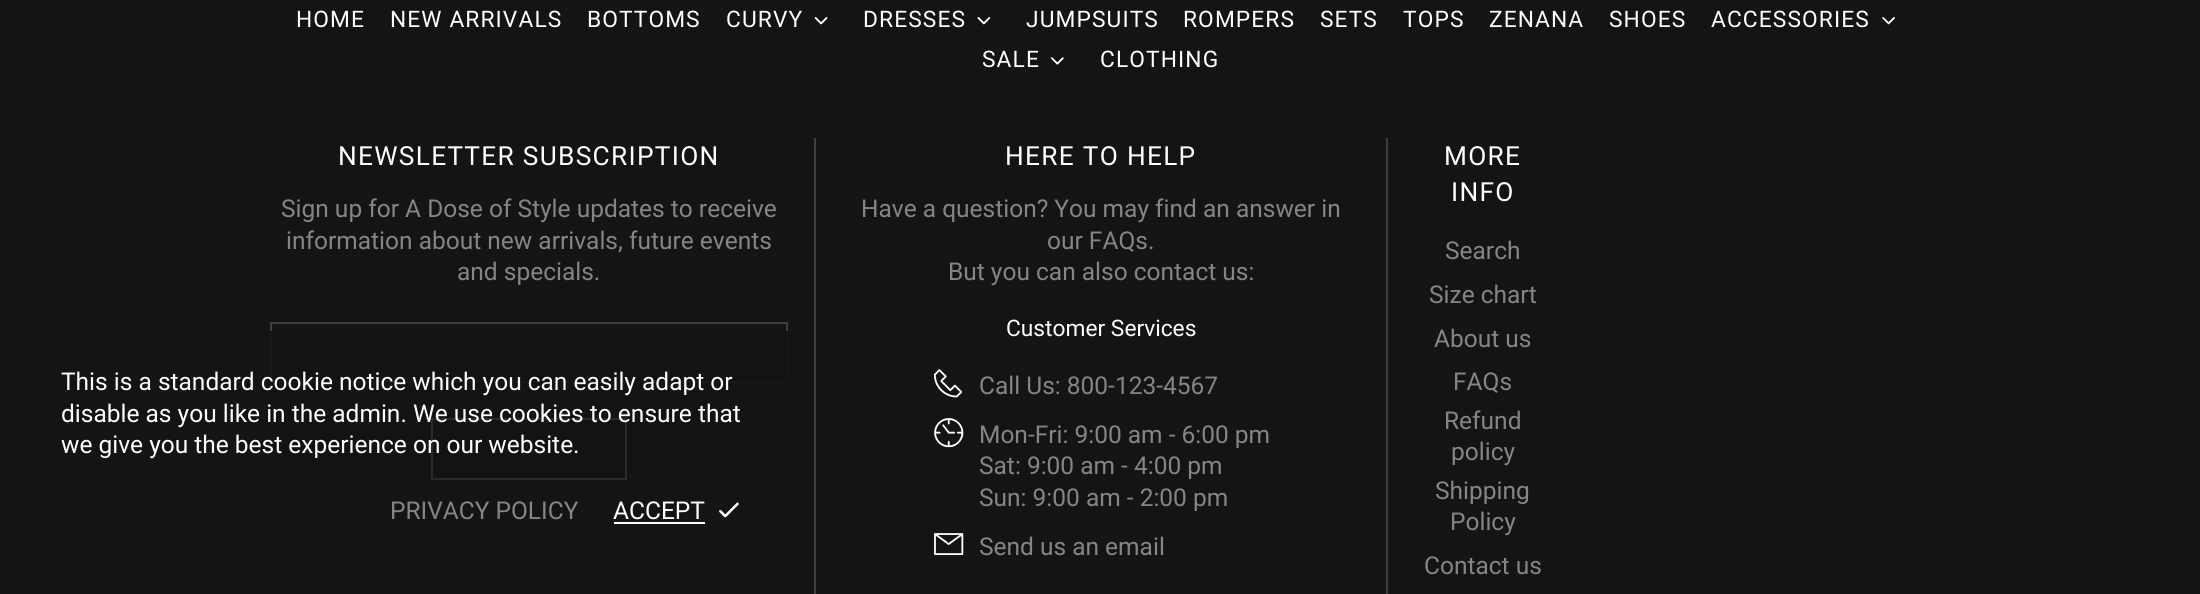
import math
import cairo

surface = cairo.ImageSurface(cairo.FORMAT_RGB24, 2200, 594)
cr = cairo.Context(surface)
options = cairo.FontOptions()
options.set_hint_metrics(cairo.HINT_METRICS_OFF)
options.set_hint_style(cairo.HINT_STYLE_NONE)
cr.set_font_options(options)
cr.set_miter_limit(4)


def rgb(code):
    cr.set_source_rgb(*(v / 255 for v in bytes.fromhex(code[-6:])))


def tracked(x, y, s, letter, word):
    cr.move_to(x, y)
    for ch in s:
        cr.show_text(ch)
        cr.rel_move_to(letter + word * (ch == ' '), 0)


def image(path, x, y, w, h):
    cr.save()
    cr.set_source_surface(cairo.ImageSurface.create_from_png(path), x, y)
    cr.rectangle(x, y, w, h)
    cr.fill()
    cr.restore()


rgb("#141414")
cr.paint()
image("img/1.png", 814, 17, 14, 8)
image("img/2.png", 977, 17, 14, 8)
image("img/3.png", 1882, 17, 13, 8)
image("img/4.png", 1051, 57, 13, 8)
cr.rectangle(271, 323, 516, 59)
rgb("#3e3e3e")
cr.stroke()
cr.rectangle(432, 419, 194, 60)
rgb("#ffffff")
cr.stroke()
rgb("#3e3e3e")
cr.rectangle(814, 138, 2, 456)
cr.fill()
image("img/5.png", 933, 369, 30, 29)
image("img/6.png", 934, 418, 30, 30)
image("img/7.png", 934, 533, 30, 22)
cr.rectangle(1386, 138, 2, 456)
cr.fill()
cr.set_source_rgba(0.078, 0.078, 0.078, 0.9)
cr.rectangle(270, 331, 518, 149)
cr.fill()
rgb("#ffffff")
cr.rectangle(614, 522, 91, 2)
cr.fill()
image("img/8.png", 719, 502, 20, 16)
cr.select_font_face("Roboto")
cr.set_font_size(22.75)
for x, y, s in [
    (296, 27, "HOME"),
    (390, 27, "NEW ARRIVALS"),
    (587, 27, "BOTTOMS"),
    (726, 27, "CURVY"),
    (863, 27, "DRESSES"),
    (1026, 27, "JUMPSUITS"),
    (1183, 27, "ROMPERS"),
    (1320, 27, "SETS"),
    (1403, 27, "TOPS"),
    (1489, 27, "ZENANA"),
    (1609, 27, "SHOES"),
    (1711, 27, "ACCESSORIES"),
    (982, 67, "SALE"),
    (1100, 67, "CLOTHING"),
]:
    tracked(x, y, s, 1.1, 0)
cr.set_font_size(26.25)
tracked(338, 165, "NEWSLETTER SUBSCRIPTION", 1.3, 0)
cr.set_font_size(24.5)
rgb("#858585")
for x, y, s in [
    (281, 217, "Sign up for A Dose of Style updates to receive"),
    (286, 249, "information about new arrivals, future events"),
    (457, 280, "and specials."),
]:
    cr.move_to(x, y)
    cr.show_text(s)
cr.set_font_size(26.25)
rgb("#ffffff")
tracked(1005, 165, "HERE TO HELP", 1.3, 0)
cr.set_font_size(24.5)
rgb("#858585")
for x, y, s in [
    (861, 217, "Have a question? You may find an answer in"),
    (1047, 249, "our FAQs."),
    (948, 280, "But you can also contact us:"),
]:
    cr.move_to(x, y)
    cr.show_text(s)
cr.set_font_size(22.75)
rgb("#ffffff")
cr.move_to(1006, 336)
cr.show_text("Customer Services")
cr.set_font_size(24.5)
rgb("#858585")
for x, y, s in [
    (979, 394, "Call Us: 800-123-4567"),
    (979, 443, "Mon-Fri: 9:00 am - 6:00 pm"),
    (979, 474, "Sat: 9:00 am - 4:00 pm"),
    (979, 506, "Sun: 9:00 am - 2:00 pm"),
    (979, 555, "Send us an email"),
]:
    cr.move_to(x, y)
    cr.show_text(s)
cr.set_font_size(26.25)
rgb("#ffffff")
tracked(1444, 165, "MORE", 1.3, 0)
tracked(1451, 201, "INFO", 1.3, 0)
cr.set_font_size(24.5)
rgb("#858585")
for x, y, s in [
    (1445, 259, "Search"),
    (1429, 303, "Size chart"),
    (1434, 347, "About us"),
    (1453, 390, "FAQs"),
    (1444, 429, "Refund"),
    (1451, 460, "policy"),
    (1435, 499, "Shipping"),
    (1450, 530, "Policy"),
    (1424, 574, "Contact us"),
]:
    cr.move_to(x, y)
    cr.show_text(s)
rgb("#ffffff")
for x, y, s in [
    (61, 390, "This is a standard cookie notice which you can easily adapt or"),
    (61, 422, "disable as you like in the admin. We use cookies to ensure that"),
    (61, 453, "we give you the best experience on our website."),
]:
    cr.move_to(x, y)
    cr.show_text(s)
rgb("#858585")
cr.move_to(390, 519)
cr.show_text("PRIVACY POLICY")
rgb("#ffffff")
cr.move_to(613, 519)
cr.show_text("ACCEPT")
surface.write_to_png("page.png")
